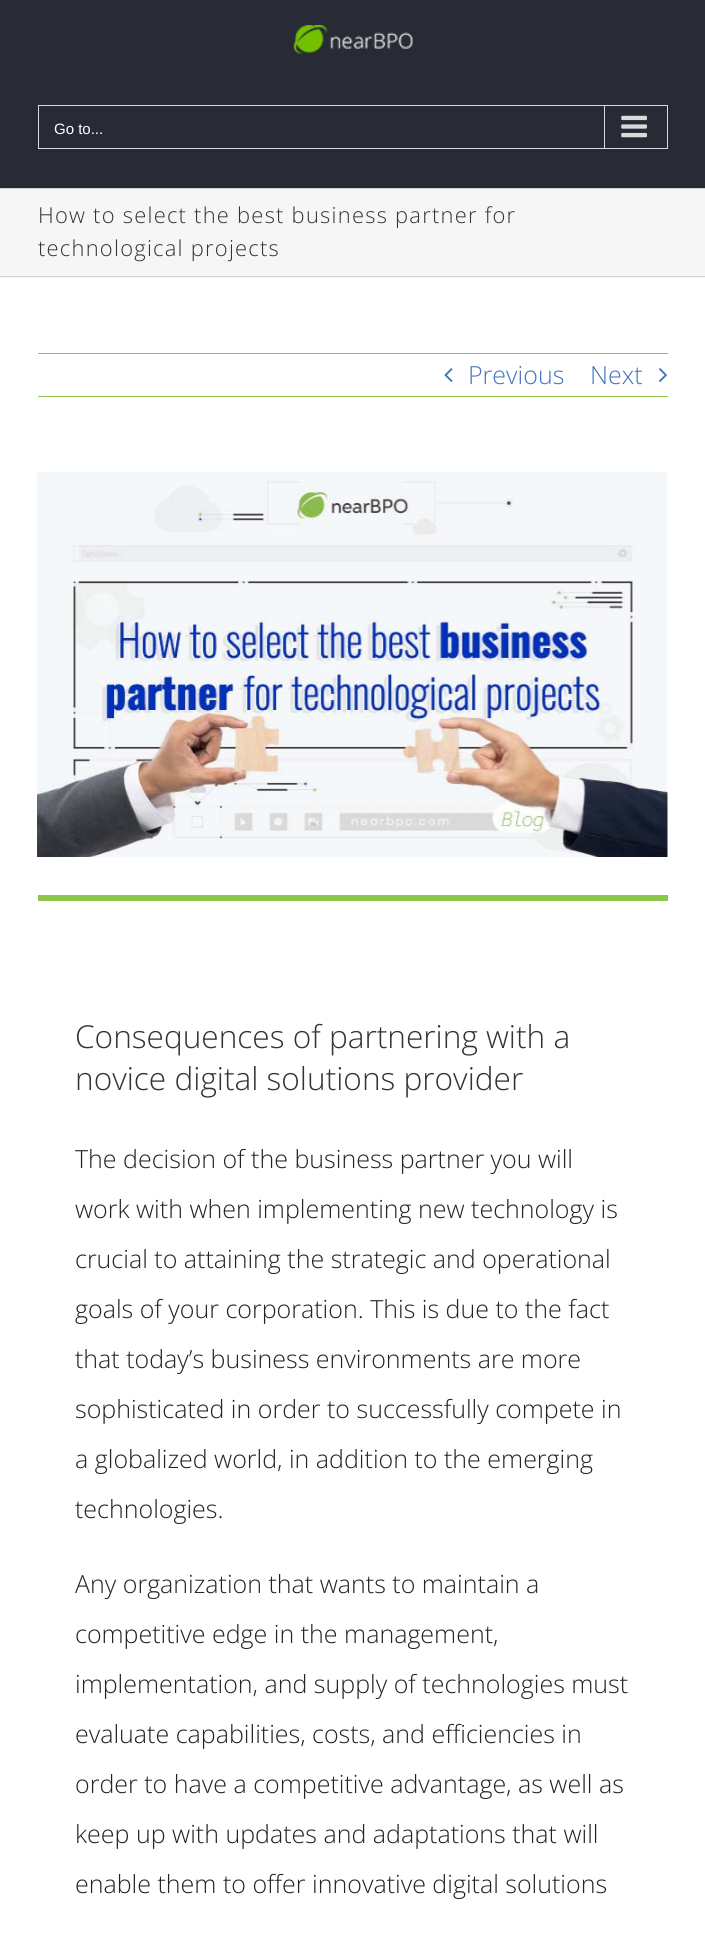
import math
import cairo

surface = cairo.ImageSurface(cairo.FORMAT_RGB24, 705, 1934)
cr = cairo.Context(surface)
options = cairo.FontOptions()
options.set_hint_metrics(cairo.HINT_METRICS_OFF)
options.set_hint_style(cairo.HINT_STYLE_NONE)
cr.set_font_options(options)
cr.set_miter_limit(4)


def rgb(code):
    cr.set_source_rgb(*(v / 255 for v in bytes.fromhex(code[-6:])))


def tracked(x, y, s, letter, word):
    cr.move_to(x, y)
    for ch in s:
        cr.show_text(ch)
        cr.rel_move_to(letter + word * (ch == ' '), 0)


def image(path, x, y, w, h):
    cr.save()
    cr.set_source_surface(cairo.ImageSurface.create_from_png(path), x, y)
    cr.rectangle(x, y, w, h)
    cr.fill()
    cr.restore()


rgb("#ffffff")
cr.paint()
rgb("#282b35")
cr.rectangle(0, 0, 705, 188)
cr.fill()
image("img/1.png", 293, 25, 120, 29)
cr.rectangle(38.5, 105.5, 629, 43)
rgb("#dadada")
cr.set_line_width(1)
cr.stroke()
cr.rectangle(604, 106, 1, 42)
cr.fill()
image("img/2.png", 621, 115, 26, 23)
for x, y, w, h, color in [
    (0, 189, 705, 89, "#f6f6f6"),
    (0, 188, 705, 1, "#d2d3d4"),
    (0, 276, 705, 1, "#d2d3d4"),
    (38, 353, 630, 1, "#8cc64d"),
    (38, 396, 630, 1, "#8cc64d"),
]:
    rgb(color)
    cr.rectangle(x, y, w, h)
    cr.fill()
image("img/3.png", 444, 368, 9, 14)
image("img/4.png", 659, 368, 8, 14)
image("img/5.png", 37, 472, 631, 385)
cr.rectangle(38, 895, 630, 6)
cr.fill()
cr.select_font_face("Liberation Sans")
cr.set_font_size(15)
rgb("#ffffff")
cr.move_to(54, 134)
cr.show_text("Go to...")
cr.select_font_face("Open Sans Light")
cr.set_font_size(21.9)
rgb("#333333")
tracked(38, 223, "How to select the best business partner for", 1.25, 0)
tracked(38, 256, "technological projects", 1.25, 0)
cr.set_font_size(25)
rgb("#4374bf")
cr.move_to(468, 384)
cr.show_text("Previous")
cr.move_to(590, 384)
cr.show_text("Next")
cr.set_font_size(31.6)
rgb("#333333")
cr.move_to(75, 1048)
cr.show_text("Consequences of partnering with a")
cr.move_to(75, 1090)
cr.show_text("novice digital solutions provider")
cr.set_font_size(25)
rgb("#232323")
for x, y, s in [
    (75, 1168, "The decision of the business partner you will"),
    (75, 1218, "work with when implementing new technology is"),
    (75, 1268, "crucial to attaining the strategic and operational"),
    (75, 1318, "goals of your corporation. This is due to the fact"),
    (75, 1368, "that today’s business environments are more"),
    (75, 1418, "sophisticated in order to successfully compete in"),
    (75, 1468, "a globalized world, in addition to the emerging"),
    (75, 1518, "technologies."),
    (75, 1593, "Any organization that wants to maintain a"),
    (75, 1643, "competitive edge in the management,"),
    (75, 1693, "implementation, and supply of technologies must"),
    (75, 1743, "evaluate capabilities, costs, and efficiencies in"),
    (75, 1793, "order to have a competitive advantage, as well as"),
    (75, 1843, "keep up with updates and adaptations that will"),
    (75, 1893, "enable them to offer innovative digital solutions"),
]:
    cr.move_to(x, y)
    cr.show_text(s)
surface.write_to_png("page.png")
